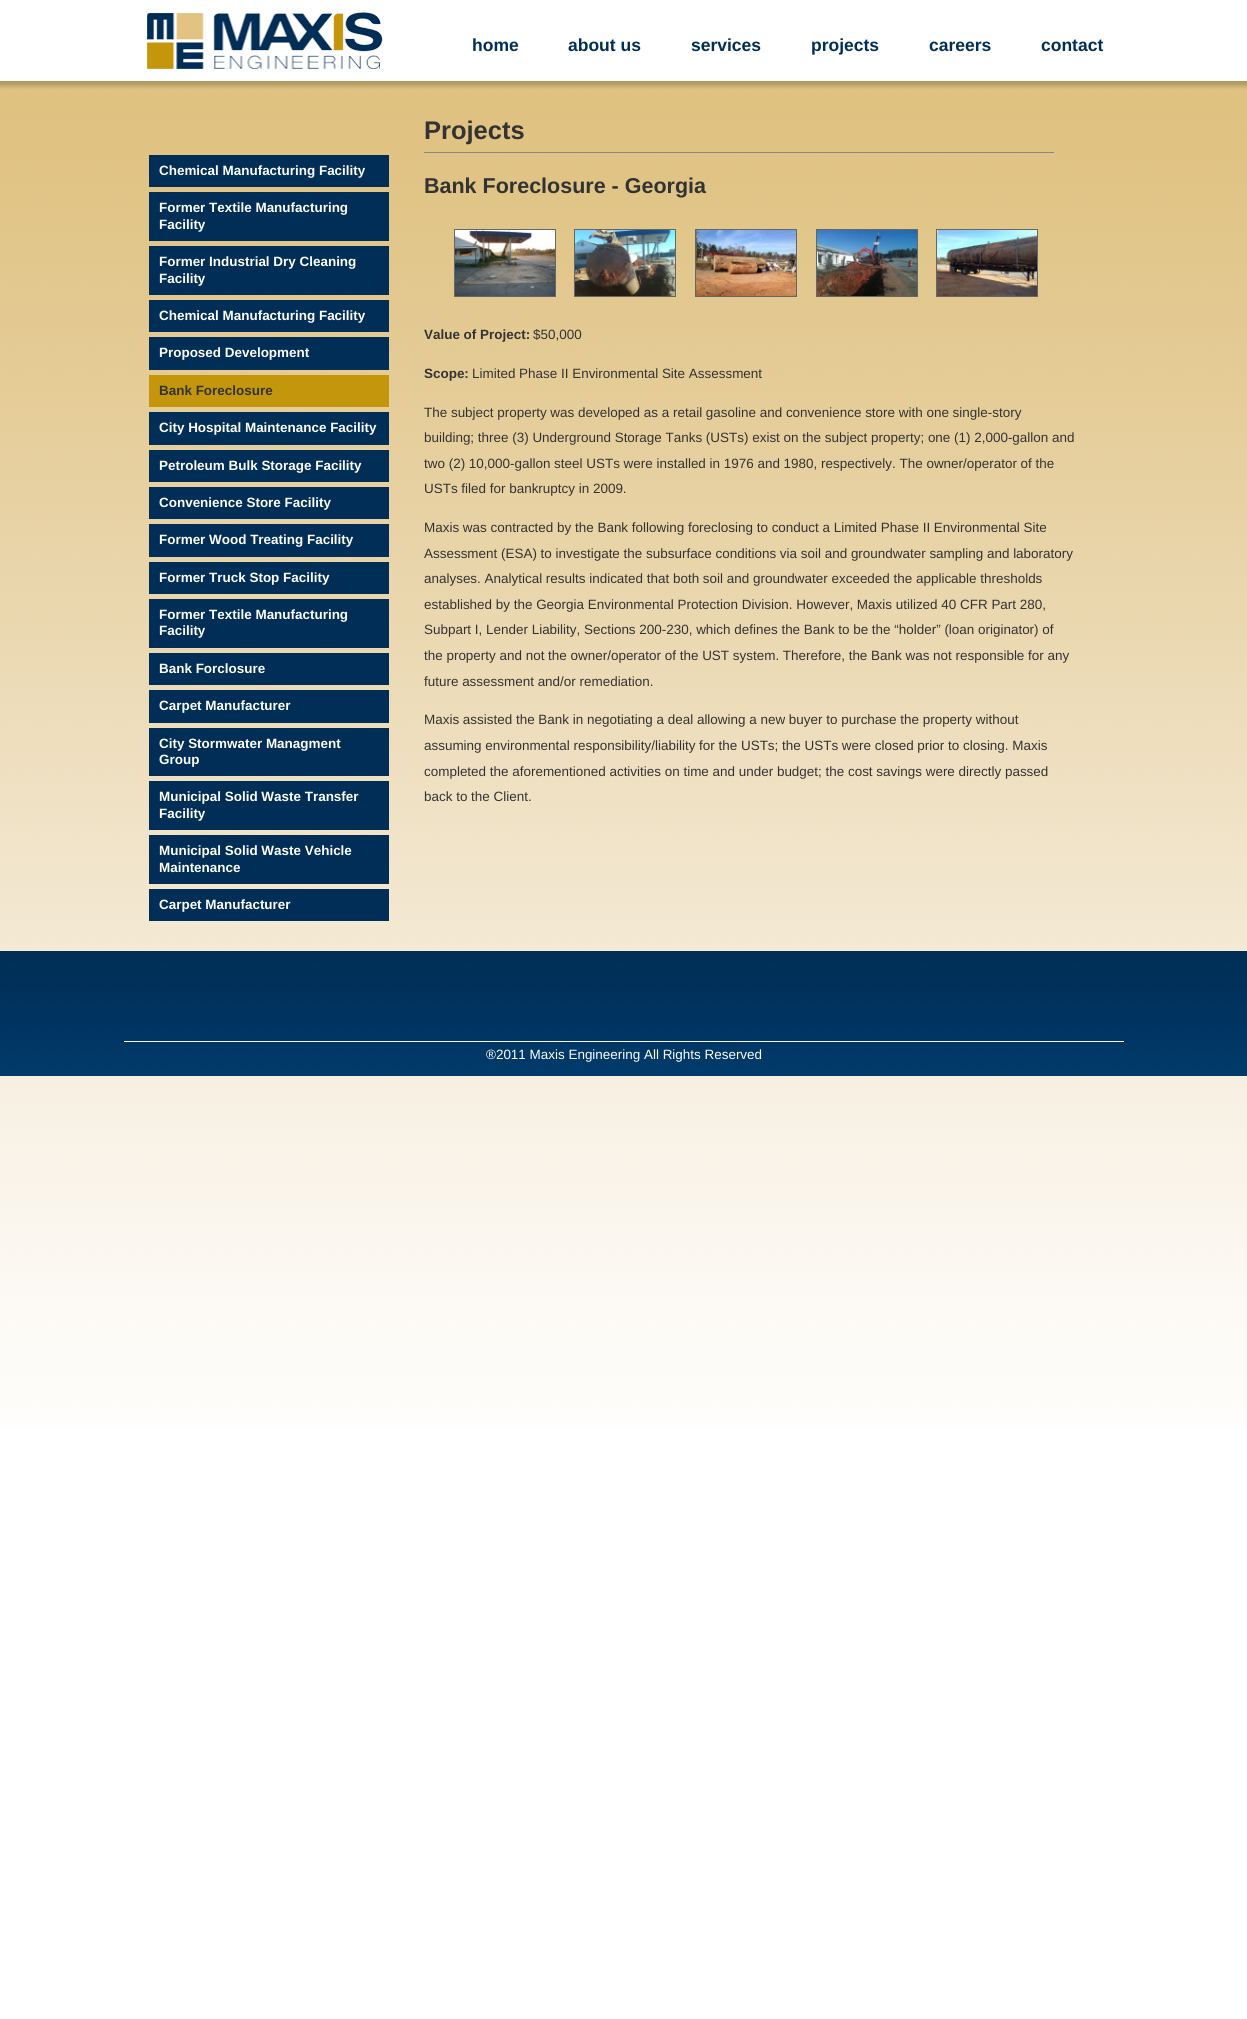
import math
import cairo

surface = cairo.ImageSurface(cairo.FORMAT_RGB24, 1247, 2019)
cr = cairo.Context(surface)
options = cairo.FontOptions()
options.set_hint_metrics(cairo.HINT_METRICS_OFF)
options.set_hint_style(cairo.HINT_STYLE_NONE)
cr.set_font_options(options)
cr.set_miter_limit(4)


def rgb(code):
    cr.set_source_rgb(*(v / 255 for v in bytes.fromhex(code[-6:])))


def image(path, x, y, w, h):
    cr.save()
    cr.set_source_surface(cairo.ImageSurface.create_from_png(path), x, y)
    cr.rectangle(x, y, w, h)
    cr.fill()
    cr.restore()


rgb("#ffffff")
cr.paint()
image("img/1.png", 0, 81, 1247, 1346)
image("img/2.png", 147, 12, 236, 57)
for x, y, w, h, color in [
    (149, 155, 240, 32, "#012e56"),
    (149, 192, 240, 49, "#012e56"),
    (149, 246, 240, 49, "#012e56"),
    (149, 300, 240, 32, "#012e56"),
    (149, 337, 240, 33, "#012e56"),
    (149, 375, 240, 32, "#c4960c"),
    (149, 412, 240, 33, "#012e56"),
    (149, 450, 240, 32, "#012e56"),
    (149, 487, 240, 32, "#012e56"),
    (149, 524, 240, 33, "#012e56"),
    (149, 562, 240, 32, "#012e56"),
    (149, 599, 240, 49, "#012e56"),
    (149, 653, 240, 32, "#012e56"),
    (149, 690, 240, 33, "#012e56"),
    (149, 728, 240, 48, "#012e56"),
    (149, 781, 240, 49, "#012e56"),
    (149, 835, 240, 49, "#012e56"),
    (149, 889, 240, 32, "#012e56"),
    (424, 152, 630, 1, "#888888"),
]:
    rgb(color)
    cr.rectangle(x, y, w, h)
    cr.fill()
cr.rectangle(454.5, 229.5, 101, 67)
rgb("#666666")
cr.set_line_width(1)
cr.stroke()
cr.rectangle(574.5, 229.5, 101, 67)
cr.stroke()
cr.rectangle(695.5, 229.5, 101, 67)
cr.stroke()
cr.rectangle(816.5, 229.5, 101, 67)
cr.stroke()
cr.rectangle(936.5, 229.5, 101, 67)
cr.stroke()
image("img/3.png", 455, 230, 100, 66)
image("img/4.png", 575, 230, 100, 66)
image("img/5.png", 696, 230, 100, 66)
image("img/6.png", 817, 230, 100, 66)
image("img/7.png", 937, 230, 100, 66)
image("img/8.png", 0, 951, 1247, 125)
rgb("#ffffff")
cr.rectangle(124, 1041, 1000, 1)
cr.fill()
cr.select_font_face("Liberation Sans", cairo.FONT_SLANT_NORMAL, cairo.FONT_WEIGHT_BOLD)
cr.set_font_size(17.5)
rgb("#012e56")
for x, y, s in [
    (472, 51, "home"),
    (568, 51, "about us"),
    (691, 51, "services"),
    (811, 51, "projects"),
    (929, 51, "careers"),
    (1041, 51, "contact"),
]:
    cr.move_to(x, y)
    cr.show_text(s)
cr.set_font_size(13.45)
rgb("#ffffff")
for x, y, s in [
    (159, 175, "Chemical Manufacturing Facility"),
    (159, 212, "Former Textile Manufacturing"),
    (159, 229, "Facility"),
    (159, 266, "Former Industrial Dry Cleaning"),
    (159, 283, "Facility"),
    (159, 320, "Chemical Manufacturing Facility"),
    (159, 357, "Proposed Development"),
]:
    cr.move_to(x, y)
    cr.show_text(s)
rgb("#333333")
cr.move_to(159, 395)
cr.show_text("Bank Foreclosure")
rgb("#ffffff")
for x, y, s in [
    (159, 432, "City Hospital Maintenance Facility"),
    (159, 470, "Petroleum Bulk Storage Facility"),
    (159, 507, "Convenience Store Facility"),
    (159, 544, "Former Wood Treating Facility"),
    (159, 582, "Former Truck Stop Facility"),
    (159, 619, "Former Textile Manufacturing"),
    (159, 635, "Facility"),
    (159, 673, "Bank Forclosure"),
    (159, 710, "Carpet Manufacturer"),
    (159, 748, "City Stormwater Managment"),
    (159, 764, "Group"),
    (159, 801, "Municipal Solid Waste Transfer"),
    (159, 818, "Facility"),
    (159, 855, "Municipal Solid Waste Vehicle"),
    (159, 872, "Maintenance"),
    (159, 909, "Carpet Manufacturer"),
]:
    cr.move_to(x, y)
    cr.show_text(s)
cr.set_font_size(25.5)
rgb("#333333")
cr.move_to(424, 139)
cr.show_text("Projects")
cr.set_font_size(21.5)
cr.move_to(424, 193)
cr.show_text("Bank Foreclosure - Georgia")
cr.set_font_size(13.45)
cr.move_to(424, 339)
cr.show_text("Value of Project:")
cr.select_font_face("Liberation Sans")
cr.move_to(533, 339)
cr.show_text("$50,000")
cr.select_font_face("Liberation Sans", cairo.FONT_SLANT_NORMAL, cairo.FONT_WEIGHT_BOLD)
cr.move_to(424, 378)
cr.show_text("Scope:")
cr.select_font_face("Liberation Sans")
for x, y, s in [
    (472, 378, "Limited Phase II Environmental Site Assessment"),
    (424, 417, "The subject property was developed as a retail gasoline and convenience store with one single-story"),
    (424, 442, "building; three (3) Underground Storage Tanks (USTs) exist on the subject property; one (1) 2,000-gallon and"),
    (424, 468, "two (2) 10,000-gallon steel USTs were installed in 1976 and 1980, respectively. The owner/operator of the"),
    (424, 493, "USTs filed for bankruptcy in 2009."),
    (424, 532, "Maxis was contracted by the Bank following foreclosing to conduct a Limited Phase II Environmental Site"),
    (424, 558, "Assessment (ESA) to investigate the subsurface conditions via soil and groundwater sampling and laboratory"),
    (424, 583, "analyses. Analytical results indicated that both soil and groundwater exceeded the applicable thresholds"),
    (424, 609, "established by the Georgia Environmental Protection Division. However, Maxis utilized 40 CFR Part 280,"),
    (424, 634, "Subpart I, Lender Liability, Sections 200-230, which defines the Bank to be the “holder” (loan originator) of"),
    (424, 660, "the property and not the owner/operator of the UST system. Therefore, the Bank was not responsible for any"),
    (424, 686, "future assessment and/or remediation."),
    (424, 724, "Maxis assisted the Bank in negotiating a deal allowing a new buyer to purchase the property without"),
    (424, 750, "assuming environmental responsibility/liability for the USTs; the USTs were closed prior to closing. Maxis"),
    (424, 776, "completed the aforementioned activities on time and under budget; the cost savings were directly passed"),
    (424, 801, "back to the Client."),
]:
    cr.move_to(x, y)
    cr.show_text(s)
rgb("#ffffff")
cr.move_to(486, 1059)
cr.show_text("®2011 Maxis Engineering All Rights Reserved")
surface.write_to_png("page.png")
